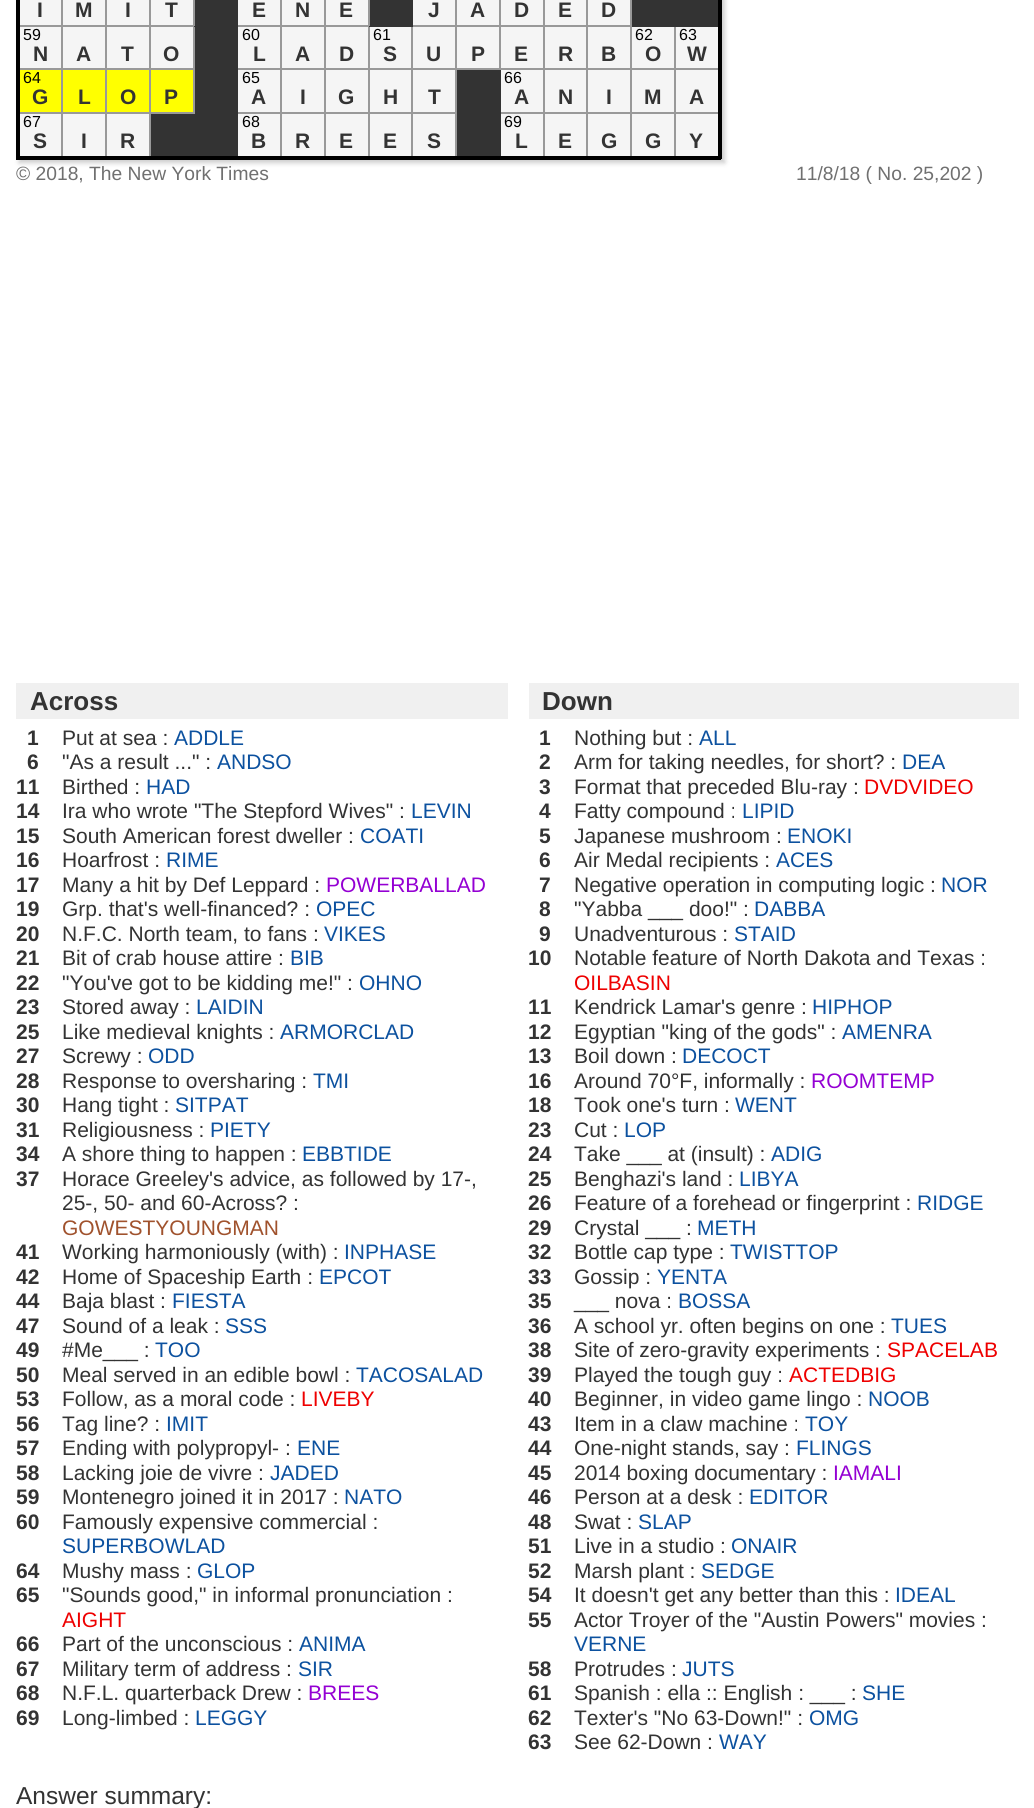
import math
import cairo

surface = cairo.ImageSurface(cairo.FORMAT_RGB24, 1034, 1808)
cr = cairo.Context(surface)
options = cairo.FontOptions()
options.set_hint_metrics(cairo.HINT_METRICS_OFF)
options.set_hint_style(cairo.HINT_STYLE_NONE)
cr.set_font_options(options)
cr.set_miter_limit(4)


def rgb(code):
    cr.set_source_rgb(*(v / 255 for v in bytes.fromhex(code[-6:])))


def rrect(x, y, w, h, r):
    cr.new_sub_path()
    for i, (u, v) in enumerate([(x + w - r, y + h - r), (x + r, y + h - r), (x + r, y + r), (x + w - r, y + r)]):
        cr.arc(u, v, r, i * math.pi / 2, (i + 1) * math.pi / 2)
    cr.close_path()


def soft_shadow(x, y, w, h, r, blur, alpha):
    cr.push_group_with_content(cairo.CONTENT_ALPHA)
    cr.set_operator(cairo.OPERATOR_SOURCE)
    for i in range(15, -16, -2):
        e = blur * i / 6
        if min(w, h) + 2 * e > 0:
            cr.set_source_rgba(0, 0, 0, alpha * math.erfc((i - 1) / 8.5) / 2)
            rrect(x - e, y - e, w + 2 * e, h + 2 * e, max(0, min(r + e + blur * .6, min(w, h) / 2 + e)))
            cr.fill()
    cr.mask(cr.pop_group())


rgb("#ffffff")
cr.paint()
rgb("#000000")
soft_shadow(19, -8, 706, 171, 0, 2.5, 0.2)
for x, y, w, h, color in [
    (20, 0, 698, 156, "#f5f5f5"),
    (674, 68, 47, 2, "#999999"),
    (674, 112, 47, 2, "#999999"),
    (674, 112, 2, 46, "#999999"),
    (630, 112, 46, 2, "#999999"),
    (674, 68, 2, 46, "#999999"),
    (630, 68, 46, 2, "#999999"),
    (630, 112, 2, 46, "#999999"),
    (586, 112, 46, 2, "#999999"),
    (630, 68, 2, 46, "#999999"),
    (586, 68, 46, 2, "#999999"),
    (630, 25, 2, 45, "#999999"),
    (674, 25, 2, 45, "#999999"),
    (630, 25, 91, 2, "#333333"),
    (718, 0, 4, 159, "#000000"),
    (193, 112, 45, 2, "#333333"),
    (236, 112, 2, 46, "#333333"),
    (499, 112, 2, 46, "#333333"),
    (105, 112, 46, 2, "#999999"),
    (105, 112, 2, 46, "#999999"),
    (61, 112, 46, 2, "#999999"),
    (61, 112, 2, 46, "#999999"),
    (149, 112, 2, 46, "#999999"),
    (411, 112, 46, 2, "#999999"),
    (411, 112, 2, 46, "#999999"),
    (368, 112, 45, 2, "#999999"),
    (368, 112, 2, 46, "#999999"),
    (324, 112, 45, 2, "#999999"),
    (324, 112, 2, 46, "#999999"),
    (280, 112, 46, 2, "#999999"),
    (280, 112, 2, 46, "#999999"),
    (455, 112, 2, 46, "#999999"),
    (586, 112, 2, 46, "#999999"),
    (543, 112, 45, 2, "#999999"),
    (543, 112, 2, 46, "#999999"),
    (16, 156, 705, 4, "#000000"),
    (149, 68, 45, 2, "#999999"),
    (193, 68, 2, 46, "#999999"),
    (149, 112, 45, 2, "#999999"),
    (149, 68, 2, 46, "#999999"),
    (105, 68, 46, 2, "#999999"),
    (149, 25, 2, 45, "#999999"),
    (105, 25, 46, 2, "#999999"),
    (105, 68, 2, 46, "#999999"),
    (61, 68, 46, 2, "#999999"),
    (105, 25, 2, 45, "#999999"),
    (61, 25, 46, 2, "#999999"),
    (18, 112, 45, 2, "#999999"),
    (61, 68, 2, 46, "#999999"),
    (18, 68, 45, 2, "#999999"),
    (61, 25, 2, 45, "#999999"),
    (18, 25, 45, 2, "#999999"),
    (16, 0, 4, 159, "#000000"),
    (61, 0, 2, 26, "#999999"),
    (105, 0, 2, 26, "#999999"),
    (411, 68, 46, 2, "#999999"),
    (411, 68, 2, 46, "#999999"),
    (368, 68, 45, 2, "#999999"),
    (368, 68, 2, 46, "#999999"),
    (324, 68, 45, 2, "#999999"),
    (324, 68, 2, 46, "#999999"),
    (280, 68, 46, 2, "#999999"),
    (324, 25, 2, 45, "#999999"),
    (280, 25, 46, 2, "#999999"),
    (280, 68, 2, 46, "#999999"),
    (280, 0, 2, 70, "#999999"),
    (236, 112, 46, 2, "#999999"),
    (236, 68, 2, 46, "#333333"),
    (236, 68, 46, 2, "#999999"),
    (236, 25, 2, 45, "#333333"),
    (236, 25, 46, 2, "#999999"),
    (236, 0, 2, 26, "#333333"),
    (193, 68, 45, 2, "#333333"),
    (193, 25, 2, 45, "#999999"),
    (193, 25, 45, 2, "#333333"),
    (193, 0, 2, 26, "#999999"),
    (149, 25, 45, 2, "#999999"),
    (149, 0, 2, 26, "#999999"),
    (195, 0, 41, 25, "#333333"),
    (586, 68, 2, 46, "#999999"),
    (543, 68, 45, 2, "#999999"),
    (586, 25, 2, 45, "#999999"),
    (543, 25, 45, 2, "#999999"),
    (543, 68, 2, 46, "#999999"),
    (543, 25, 2, 45, "#999999"),
    (499, 25, 45, 2, "#999999"),
    (499, 112, 45, 2, "#999999"),
    (499, 68, 2, 46, "#333333"),
    (499, 68, 45, 2, "#999999"),
    (499, 25, 2, 45, "#999999"),
    (455, 25, 46, 2, "#999999"),
    (455, 112, 46, 2, "#333333"),
    (455, 68, 2, 46, "#999999"),
    (455, 68, 46, 2, "#999999"),
    (455, 25, 2, 45, "#999999"),
    (411, 25, 46, 2, "#999999"),
    (411, 25, 2, 45, "#999999"),
    (411, 0, 2, 26, "#333333"),
    (368, 25, 2, 45, "#999999"),
    (368, 25, 45, 2, "#333333"),
    (368, 0, 2, 26, "#999999"),
    (324, 25, 45, 2, "#999999"),
    (324, 0, 2, 26, "#999999"),
    (370, 0, 41, 25, "#333333"),
    (455, 0, 2, 26, "#999999"),
    (499, 0, 2, 26, "#999999"),
    (543, 0, 2, 26, "#999999"),
    (630, 0, 2, 26, "#999999"),
    (586, 25, 46, 2, "#999999"),
    (586, 0, 2, 26, "#999999"),
    (632, 0, 86, 25, "#333333"),
    (195, 27, 41, 41, "#333333"),
    (20, 70, 41, 42, "#ffff00"),
    (63, 70, 42, 42, "#ffff00"),
    (107, 70, 42, 42, "#ffff00"),
    (151, 70, 42, 42, "#ffff00"),
    (195, 70, 41, 42, "#333333"),
    (457, 70, 42, 42, "#333333"),
    (457, 114, 42, 42, "#333333"),
    (151, 114, 85, 42, "#333333"),
    (16, 683, 492, 36, "#f0f0f0"),
    (529, 683, 490, 36, "#f0f0f0"),
]:
    rgb(color)
    cr.rectangle(x, y, w, h)
    cr.fill()
cr.select_font_face("Liberation Sans", cairo.FONT_SLANT_NORMAL, cairo.FONT_WEIGHT_BOLD)
cr.set_font_size(21)
rgb("#333333")
for x, y, s in [
    (37, 17, "I"),
    (75, 17, "M"),
    (125, 17, "I"),
    (165, 17, "T"),
    (252, 17, "E"),
    (295, 17, "N"),
    (339, 17, "E"),
    (428, 17, "J"),
    (470, 17, "A"),
    (514, 17, "D"),
    (558, 17, "E"),
    (601, 17, "D"),
]:
    cr.move_to(x, y)
    cr.show_text(s)
cr.select_font_face("Liberation Sans")
cr.set_font_size(16)
rgb("#000000")
cr.move_to(23, 40)
cr.show_text("59")
cr.select_font_face("Liberation Sans", cairo.FONT_SLANT_NORMAL, cairo.FONT_WEIGHT_BOLD)
cr.set_font_size(21)
rgb("#333333")
for x, y, s in [
    (33, 61, "N"),
    (76, 61, "A"),
    (121, 61, "T"),
    (163, 61, "O"),
]:
    cr.move_to(x, y)
    cr.show_text(s)
cr.select_font_face("Liberation Sans")
cr.set_font_size(16)
rgb("#000000")
cr.move_to(242, 40)
cr.show_text("60")
cr.select_font_face("Liberation Sans", cairo.FONT_SLANT_NORMAL, cairo.FONT_WEIGHT_BOLD)
cr.set_font_size(21)
rgb("#333333")
for x, y, s in [
    (253, 61, "L"),
    (295, 61, "A"),
    (339, 61, "D"),
]:
    cr.move_to(x, y)
    cr.show_text(s)
cr.select_font_face("Liberation Sans")
cr.set_font_size(16)
rgb("#000000")
cr.move_to(373, 40)
cr.show_text("61")
cr.select_font_face("Liberation Sans", cairo.FONT_SLANT_NORMAL, cairo.FONT_WEIGHT_BOLD)
cr.set_font_size(21)
rgb("#333333")
for x, y, s in [
    (383, 61, "S"),
    (426, 61, "U"),
    (471, 61, "P"),
    (514, 61, "E"),
    (558, 61, "R"),
    (601, 61, "B"),
]:
    cr.move_to(x, y)
    cr.show_text(s)
cr.select_font_face("Liberation Sans")
cr.set_font_size(16)
rgb("#000000")
cr.move_to(635, 40)
cr.show_text("62")
cr.select_font_face("Liberation Sans", cairo.FONT_SLANT_NORMAL, cairo.FONT_WEIGHT_BOLD)
cr.set_font_size(21)
rgb("#333333")
cr.move_to(645, 61)
cr.show_text("O")
cr.select_font_face("Liberation Sans")
cr.set_font_size(16)
rgb("#000000")
cr.move_to(679, 40)
cr.show_text("63")
cr.select_font_face("Liberation Sans", cairo.FONT_SLANT_NORMAL, cairo.FONT_WEIGHT_BOLD)
cr.set_font_size(21)
rgb("#333333")
cr.move_to(687, 61)
cr.show_text("W")
cr.select_font_face("Liberation Sans")
cr.set_font_size(16)
rgb("#000000")
cr.move_to(23, 83)
cr.show_text("64")
cr.select_font_face("Liberation Sans", cairo.FONT_SLANT_NORMAL, cairo.FONT_WEIGHT_BOLD)
cr.set_font_size(21)
rgb("#333333")
for x, y, s in [
    (32, 104, "G"),
    (78, 104, "L"),
    (120, 104, "O"),
    (164, 104, "P"),
]:
    cr.move_to(x, y)
    cr.show_text(s)
cr.select_font_face("Liberation Sans")
cr.set_font_size(16)
rgb("#000000")
cr.move_to(242, 83)
cr.show_text("65")
cr.select_font_face("Liberation Sans", cairo.FONT_SLANT_NORMAL, cairo.FONT_WEIGHT_BOLD)
cr.set_font_size(21)
rgb("#333333")
for x, y, s in [
    (251, 104, "A"),
    (300, 104, "I"),
    (338, 104, "G"),
    (383, 104, "H"),
    (428, 104, "T"),
]:
    cr.move_to(x, y)
    cr.show_text(s)
cr.select_font_face("Liberation Sans")
cr.set_font_size(16)
rgb("#000000")
cr.move_to(504, 83)
cr.show_text("66")
cr.select_font_face("Liberation Sans", cairo.FONT_SLANT_NORMAL, cairo.FONT_WEIGHT_BOLD)
cr.set_font_size(21)
rgb("#333333")
for x, y, s in [
    (514, 104, "A"),
    (558, 104, "N"),
    (606, 104, "I"),
    (644, 104, "M"),
    (689, 104, "A"),
]:
    cr.move_to(x, y)
    cr.show_text(s)
cr.select_font_face("Liberation Sans")
cr.set_font_size(16)
rgb("#000000")
cr.move_to(23, 127)
cr.show_text("67")
cr.select_font_face("Liberation Sans", cairo.FONT_SLANT_NORMAL, cairo.FONT_WEIGHT_BOLD)
cr.set_font_size(21)
rgb("#333333")
for x, y, s in [
    (33, 148, "S"),
    (81, 148, "I"),
    (120, 148, "R"),
]:
    cr.move_to(x, y)
    cr.show_text(s)
cr.select_font_face("Liberation Sans")
cr.set_font_size(16)
rgb("#000000")
cr.move_to(242, 127)
cr.show_text("68")
cr.select_font_face("Liberation Sans", cairo.FONT_SLANT_NORMAL, cairo.FONT_WEIGHT_BOLD)
cr.set_font_size(21)
rgb("#333333")
for x, y, s in [
    (251, 148, "B"),
    (295, 148, "R"),
    (339, 148, "E"),
    (383, 148, "E"),
    (427, 148, "S"),
]:
    cr.move_to(x, y)
    cr.show_text(s)
cr.select_font_face("Liberation Sans")
cr.set_font_size(16)
rgb("#000000")
cr.move_to(504, 127)
cr.show_text("69")
cr.select_font_face("Liberation Sans", cairo.FONT_SLANT_NORMAL, cairo.FONT_WEIGHT_BOLD)
cr.set_font_size(21)
rgb("#333333")
for x, y, s in [
    (515, 148, "L"),
    (558, 148, "E"),
    (601, 148, "G"),
    (645, 148, "G"),
    (689, 148, "Y"),
]:
    cr.move_to(x, y)
    cr.show_text(s)
cr.select_font_face("Liberation Sans")
cr.set_font_size(19.25)
rgb("#707070")
cr.move_to(16, 180)
cr.show_text("© 2018, The New York Times")
cr.move_to(796, 180)
cr.show_text("11/8/18 ( No. 25,202 )")
cr.select_font_face("Liberation Sans", cairo.FONT_SLANT_NORMAL, cairo.FONT_WEIGHT_BOLD)
cr.set_font_size(26)
rgb("#333333")
cr.move_to(30, 710)
cr.show_text("Across")
cr.set_font_size(21)
cr.move_to(27, 745)
cr.show_text("1")
cr.select_font_face("Liberation Sans")
cr.move_to(62, 745)
cr.show_text("Put at sea :")
rgb("#0c519f")
cr.move_to(174, 745)
cr.show_text("ADDLE")
cr.select_font_face("Liberation Sans", cairo.FONT_SLANT_NORMAL, cairo.FONT_WEIGHT_BOLD)
rgb("#333333")
cr.move_to(27, 769)
cr.show_text("6")
cr.select_font_face("Liberation Sans")
cr.move_to(62, 769)
cr.show_text("\"As a result ...\" :")
rgb("#0c519f")
cr.move_to(217, 769)
cr.show_text("ANDSO")
cr.select_font_face("Liberation Sans", cairo.FONT_SLANT_NORMAL, cairo.FONT_WEIGHT_BOLD)
rgb("#333333")
cr.move_to(16, 794)
cr.show_text("11")
cr.select_font_face("Liberation Sans")
cr.move_to(62, 794)
cr.show_text("Birthed :")
rgb("#0c519f")
cr.move_to(146, 794)
cr.show_text("HAD")
cr.select_font_face("Liberation Sans", cairo.FONT_SLANT_NORMAL, cairo.FONT_WEIGHT_BOLD)
rgb("#333333")
cr.move_to(16, 818)
cr.show_text("14")
cr.select_font_face("Liberation Sans")
cr.move_to(62, 818)
cr.show_text("Ira who wrote \"The Stepford Wives\" :")
rgb("#0c519f")
cr.move_to(411, 818)
cr.show_text("LEVIN")
cr.select_font_face("Liberation Sans", cairo.FONT_SLANT_NORMAL, cairo.FONT_WEIGHT_BOLD)
rgb("#333333")
cr.move_to(16, 843)
cr.show_text("15")
cr.select_font_face("Liberation Sans")
cr.move_to(62, 843)
cr.show_text("South American forest dweller :")
rgb("#0c519f")
cr.move_to(360, 843)
cr.show_text("COATI")
cr.select_font_face("Liberation Sans", cairo.FONT_SLANT_NORMAL, cairo.FONT_WEIGHT_BOLD)
rgb("#333333")
cr.move_to(16, 867)
cr.show_text("16")
cr.select_font_face("Liberation Sans")
cr.move_to(62, 867)
cr.show_text("Hoarfrost :")
rgb("#0c519f")
cr.move_to(166, 867)
cr.show_text("RIME")
cr.select_font_face("Liberation Sans", cairo.FONT_SLANT_NORMAL, cairo.FONT_WEIGHT_BOLD)
rgb("#333333")
cr.move_to(16, 892)
cr.show_text("17")
cr.select_font_face("Liberation Sans")
cr.move_to(62, 892)
cr.show_text("Many a hit by Def Leppard :")
rgb("#9400d3")
cr.move_to(326, 892)
cr.show_text("POWERBALLAD")
cr.select_font_face("Liberation Sans", cairo.FONT_SLANT_NORMAL, cairo.FONT_WEIGHT_BOLD)
rgb("#333333")
cr.move_to(16, 916)
cr.show_text("19")
cr.select_font_face("Liberation Sans")
cr.move_to(62, 916)
cr.show_text("Grp. that's well-financed? :")
rgb("#0c519f")
cr.move_to(316, 916)
cr.show_text("OPEC")
cr.select_font_face("Liberation Sans", cairo.FONT_SLANT_NORMAL, cairo.FONT_WEIGHT_BOLD)
rgb("#333333")
cr.move_to(16, 941)
cr.show_text("20")
cr.select_font_face("Liberation Sans")
cr.move_to(62, 941)
cr.show_text("N.F.C. North team, to fans :")
rgb("#0c519f")
cr.move_to(324, 941)
cr.show_text("VIKES")
cr.select_font_face("Liberation Sans", cairo.FONT_SLANT_NORMAL, cairo.FONT_WEIGHT_BOLD)
rgb("#333333")
cr.move_to(16, 965)
cr.show_text("21")
cr.select_font_face("Liberation Sans")
cr.move_to(62, 965)
cr.show_text("Bit of crab house attire :")
rgb("#0c519f")
cr.move_to(290, 965)
cr.show_text("BIB")
cr.select_font_face("Liberation Sans", cairo.FONT_SLANT_NORMAL, cairo.FONT_WEIGHT_BOLD)
rgb("#333333")
cr.move_to(16, 990)
cr.show_text("22")
cr.select_font_face("Liberation Sans")
cr.move_to(62, 990)
cr.show_text("\"You've got to be kidding me!\" :")
rgb("#0c519f")
cr.move_to(359, 990)
cr.show_text("OHNO")
cr.select_font_face("Liberation Sans", cairo.FONT_SLANT_NORMAL, cairo.FONT_WEIGHT_BOLD)
rgb("#333333")
cr.move_to(16, 1014)
cr.show_text("23")
cr.select_font_face("Liberation Sans")
cr.move_to(62, 1014)
cr.show_text("Stored away :")
rgb("#0c519f")
cr.move_to(196, 1014)
cr.show_text("LAIDIN")
cr.select_font_face("Liberation Sans", cairo.FONT_SLANT_NORMAL, cairo.FONT_WEIGHT_BOLD)
rgb("#333333")
cr.move_to(16, 1039)
cr.show_text("25")
cr.select_font_face("Liberation Sans")
cr.move_to(62, 1039)
cr.show_text("Like medieval knights :")
rgb("#0c519f")
cr.move_to(280, 1039)
cr.show_text("ARMORCLAD")
cr.select_font_face("Liberation Sans", cairo.FONT_SLANT_NORMAL, cairo.FONT_WEIGHT_BOLD)
rgb("#333333")
cr.move_to(16, 1063)
cr.show_text("27")
cr.select_font_face("Liberation Sans")
cr.move_to(62, 1063)
cr.show_text("Screwy :")
rgb("#0c519f")
cr.move_to(148, 1063)
cr.show_text("ODD")
cr.select_font_face("Liberation Sans", cairo.FONT_SLANT_NORMAL, cairo.FONT_WEIGHT_BOLD)
rgb("#333333")
cr.move_to(16, 1088)
cr.show_text("28")
cr.select_font_face("Liberation Sans")
cr.move_to(62, 1088)
cr.show_text("Response to oversharing :")
rgb("#0c519f")
cr.move_to(313, 1088)
cr.show_text("TMI")
cr.select_font_face("Liberation Sans", cairo.FONT_SLANT_NORMAL, cairo.FONT_WEIGHT_BOLD)
rgb("#333333")
cr.move_to(16, 1112)
cr.show_text("30")
cr.select_font_face("Liberation Sans")
cr.move_to(62, 1112)
cr.show_text("Hang tight :")
rgb("#0c519f")
cr.move_to(175, 1112)
cr.show_text("SITPAT")
cr.select_font_face("Liberation Sans", cairo.FONT_SLANT_NORMAL, cairo.FONT_WEIGHT_BOLD)
rgb("#333333")
cr.move_to(16, 1137)
cr.show_text("31")
cr.select_font_face("Liberation Sans")
cr.move_to(62, 1137)
cr.show_text("Religiousness :")
rgb("#0c519f")
cr.move_to(210, 1137)
cr.show_text("PIETY")
cr.select_font_face("Liberation Sans", cairo.FONT_SLANT_NORMAL, cairo.FONT_WEIGHT_BOLD)
rgb("#333333")
cr.move_to(16, 1161)
cr.show_text("34")
cr.select_font_face("Liberation Sans")
cr.move_to(62, 1161)
cr.show_text("A shore thing to happen :")
rgb("#0c519f")
cr.move_to(302, 1161)
cr.show_text("EBBTIDE")
cr.select_font_face("Liberation Sans", cairo.FONT_SLANT_NORMAL, cairo.FONT_WEIGHT_BOLD)
rgb("#333333")
cr.move_to(16, 1186)
cr.show_text("37")
cr.select_font_face("Liberation Sans")
cr.move_to(62, 1186)
cr.show_text("Horace Greeley's advice, as followed by 17-,")
cr.move_to(62, 1210)
cr.show_text("25-, 50- and 60-Across? :")
rgb("#a0522d")
cr.move_to(62, 1235)
cr.show_text("GOWESTYOUNGMAN")
cr.select_font_face("Liberation Sans", cairo.FONT_SLANT_NORMAL, cairo.FONT_WEIGHT_BOLD)
rgb("#333333")
cr.move_to(16, 1259)
cr.show_text("41")
cr.select_font_face("Liberation Sans")
cr.move_to(62, 1259)
cr.show_text("Working harmoniously (with) :")
rgb("#0c519f")
cr.move_to(344, 1259)
cr.show_text("INPHASE")
cr.select_font_face("Liberation Sans", cairo.FONT_SLANT_NORMAL, cairo.FONT_WEIGHT_BOLD)
rgb("#333333")
cr.move_to(16, 1284)
cr.show_text("42")
cr.select_font_face("Liberation Sans")
cr.move_to(62, 1284)
cr.show_text("Home of Spaceship Earth :")
rgb("#0c519f")
cr.move_to(319, 1284)
cr.show_text("EPCOT")
cr.select_font_face("Liberation Sans", cairo.FONT_SLANT_NORMAL, cairo.FONT_WEIGHT_BOLD)
rgb("#333333")
cr.move_to(16, 1308)
cr.show_text("44")
cr.select_font_face("Liberation Sans")
cr.move_to(62, 1308)
cr.show_text("Baja blast :")
rgb("#0c519f")
cr.move_to(172, 1308)
cr.show_text("FIESTA")
cr.select_font_face("Liberation Sans", cairo.FONT_SLANT_NORMAL, cairo.FONT_WEIGHT_BOLD)
rgb("#333333")
cr.move_to(16, 1333)
cr.show_text("47")
cr.select_font_face("Liberation Sans")
cr.move_to(62, 1333)
cr.show_text("Sound of a leak :")
rgb("#0c519f")
cr.move_to(225, 1333)
cr.show_text("SSS")
cr.select_font_face("Liberation Sans", cairo.FONT_SLANT_NORMAL, cairo.FONT_WEIGHT_BOLD)
rgb("#333333")
cr.move_to(16, 1357)
cr.show_text("49")
cr.select_font_face("Liberation Sans")
cr.move_to(62, 1357)
cr.show_text("#Me___ :")
rgb("#0c519f")
cr.move_to(155, 1357)
cr.show_text("TOO")
cr.select_font_face("Liberation Sans", cairo.FONT_SLANT_NORMAL, cairo.FONT_WEIGHT_BOLD)
rgb("#333333")
cr.move_to(16, 1382)
cr.show_text("50")
cr.select_font_face("Liberation Sans")
cr.move_to(62, 1382)
cr.show_text("Meal served in an edible bowl :")
rgb("#0c519f")
cr.move_to(356, 1382)
cr.show_text("TACOSALAD")
cr.select_font_face("Liberation Sans", cairo.FONT_SLANT_NORMAL, cairo.FONT_WEIGHT_BOLD)
rgb("#333333")
cr.move_to(16, 1406)
cr.show_text("53")
cr.select_font_face("Liberation Sans")
cr.move_to(62, 1406)
cr.show_text("Follow, as a moral code :")
rgb("#ee0000")
cr.move_to(301, 1406)
cr.show_text("LIVEBY")
cr.select_font_face("Liberation Sans", cairo.FONT_SLANT_NORMAL, cairo.FONT_WEIGHT_BOLD)
rgb("#333333")
cr.move_to(16, 1431)
cr.show_text("56")
cr.select_font_face("Liberation Sans")
cr.move_to(62, 1431)
cr.show_text("Tag line? :")
rgb("#0c519f")
cr.move_to(166, 1431)
cr.show_text("IMIT")
cr.select_font_face("Liberation Sans", cairo.FONT_SLANT_NORMAL, cairo.FONT_WEIGHT_BOLD)
rgb("#333333")
cr.move_to(16, 1455)
cr.show_text("57")
cr.select_font_face("Liberation Sans")
cr.move_to(62, 1455)
cr.show_text("Ending with polypropyl- :")
rgb("#0c519f")
cr.move_to(297, 1455)
cr.show_text("ENE")
cr.select_font_face("Liberation Sans", cairo.FONT_SLANT_NORMAL, cairo.FONT_WEIGHT_BOLD)
rgb("#333333")
cr.move_to(16, 1480)
cr.show_text("58")
cr.select_font_face("Liberation Sans")
cr.move_to(62, 1480)
cr.show_text("Lacking joie de vivre :")
rgb("#0c519f")
cr.move_to(270, 1480)
cr.show_text("JADED")
cr.select_font_face("Liberation Sans", cairo.FONT_SLANT_NORMAL, cairo.FONT_WEIGHT_BOLD)
rgb("#333333")
cr.move_to(16, 1504)
cr.show_text("59")
cr.select_font_face("Liberation Sans")
cr.move_to(62, 1504)
cr.show_text("Montenegro joined it in 2017 :")
rgb("#0c519f")
cr.move_to(344, 1504)
cr.show_text("NATO")
cr.select_font_face("Liberation Sans", cairo.FONT_SLANT_NORMAL, cairo.FONT_WEIGHT_BOLD)
rgb("#333333")
cr.move_to(16, 1529)
cr.show_text("60")
cr.select_font_face("Liberation Sans")
cr.move_to(62, 1529)
cr.show_text("Famously expensive commercial :")
rgb("#0c519f")
cr.move_to(62, 1553)
cr.show_text("SUPERBOWLAD")
cr.select_font_face("Liberation Sans", cairo.FONT_SLANT_NORMAL, cairo.FONT_WEIGHT_BOLD)
rgb("#333333")
cr.move_to(16, 1578)
cr.show_text("64")
cr.select_font_face("Liberation Sans")
cr.move_to(62, 1578)
cr.show_text("Mushy mass :")
rgb("#0c519f")
cr.move_to(197, 1578)
cr.show_text("GLOP")
cr.select_font_face("Liberation Sans", cairo.FONT_SLANT_NORMAL, cairo.FONT_WEIGHT_BOLD)
rgb("#333333")
cr.move_to(16, 1602)
cr.show_text("65")
cr.select_font_face("Liberation Sans")
cr.move_to(62, 1602)
cr.show_text("\"Sounds good,\" in informal pronunciation :")
rgb("#ee0000")
cr.move_to(62, 1627)
cr.show_text("AIGHT")
cr.select_font_face("Liberation Sans", cairo.FONT_SLANT_NORMAL, cairo.FONT_WEIGHT_BOLD)
rgb("#333333")
cr.move_to(16, 1651)
cr.show_text("66")
cr.select_font_face("Liberation Sans")
cr.move_to(62, 1651)
cr.show_text("Part of the unconscious :")
rgb("#0c519f")
cr.move_to(299, 1651)
cr.show_text("ANIMA")
cr.select_font_face("Liberation Sans", cairo.FONT_SLANT_NORMAL, cairo.FONT_WEIGHT_BOLD)
rgb("#333333")
cr.move_to(16, 1676)
cr.show_text("67")
cr.select_font_face("Liberation Sans")
cr.move_to(62, 1676)
cr.show_text("Military term of address :")
rgb("#0c519f")
cr.move_to(298, 1676)
cr.show_text("SIR")
cr.select_font_face("Liberation Sans", cairo.FONT_SLANT_NORMAL, cairo.FONT_WEIGHT_BOLD)
rgb("#333333")
cr.move_to(16, 1700)
cr.show_text("68")
cr.select_font_face("Liberation Sans")
cr.move_to(62, 1700)
cr.show_text("N.F.L. quarterback Drew :")
rgb("#9400d3")
cr.move_to(308, 1700)
cr.show_text("BREES")
cr.select_font_face("Liberation Sans", cairo.FONT_SLANT_NORMAL, cairo.FONT_WEIGHT_BOLD)
rgb("#333333")
cr.move_to(16, 1725)
cr.show_text("69")
cr.select_font_face("Liberation Sans")
cr.move_to(62, 1725)
cr.show_text("Long-limbed :")
rgb("#0c519f")
cr.move_to(195, 1725)
cr.show_text("LEGGY")
cr.select_font_face("Liberation Sans", cairo.FONT_SLANT_NORMAL, cairo.FONT_WEIGHT_BOLD)
cr.set_font_size(26)
rgb("#333333")
cr.move_to(542, 710)
cr.show_text("Down")
cr.set_font_size(21)
cr.move_to(539, 745)
cr.show_text("1")
cr.select_font_face("Liberation Sans")
cr.move_to(574, 745)
cr.show_text("Nothing but :")
rgb("#0c519f")
cr.move_to(699, 745)
cr.show_text("ALL")
cr.select_font_face("Liberation Sans", cairo.FONT_SLANT_NORMAL, cairo.FONT_WEIGHT_BOLD)
rgb("#333333")
cr.move_to(539, 769)
cr.show_text("2")
cr.select_font_face("Liberation Sans")
cr.move_to(574, 769)
cr.show_text("Arm for taking needles, for short? :")
rgb("#0c519f")
cr.move_to(902, 769)
cr.show_text("DEA")
cr.select_font_face("Liberation Sans", cairo.FONT_SLANT_NORMAL, cairo.FONT_WEIGHT_BOLD)
rgb("#333333")
cr.move_to(539, 794)
cr.show_text("3")
cr.select_font_face("Liberation Sans")
cr.move_to(574, 794)
cr.show_text("Format that preceded Blu-ray :")
rgb("#ee0000")
cr.move_to(864, 794)
cr.show_text("DVDVIDEO")
cr.select_font_face("Liberation Sans", cairo.FONT_SLANT_NORMAL, cairo.FONT_WEIGHT_BOLD)
rgb("#333333")
cr.move_to(539, 818)
cr.show_text("4")
cr.select_font_face("Liberation Sans")
cr.move_to(574, 818)
cr.show_text("Fatty compound :")
rgb("#0c519f")
cr.move_to(742, 818)
cr.show_text("LIPID")
cr.select_font_face("Liberation Sans", cairo.FONT_SLANT_NORMAL, cairo.FONT_WEIGHT_BOLD)
rgb("#333333")
cr.move_to(539, 843)
cr.show_text("5")
cr.select_font_face("Liberation Sans")
cr.move_to(574, 843)
cr.show_text("Japanese mushroom :")
rgb("#0c519f")
cr.move_to(787, 843)
cr.show_text("ENOKI")
cr.select_font_face("Liberation Sans", cairo.FONT_SLANT_NORMAL, cairo.FONT_WEIGHT_BOLD)
rgb("#333333")
cr.move_to(539, 867)
cr.show_text("6")
cr.select_font_face("Liberation Sans")
cr.move_to(574, 867)
cr.show_text("Air Medal recipients :")
rgb("#0c519f")
cr.move_to(776, 867)
cr.show_text("ACES")
cr.select_font_face("Liberation Sans", cairo.FONT_SLANT_NORMAL, cairo.FONT_WEIGHT_BOLD)
rgb("#333333")
cr.move_to(539, 892)
cr.show_text("7")
cr.select_font_face("Liberation Sans")
cr.move_to(574, 892)
cr.show_text("Negative operation in computing logic :")
rgb("#0c519f")
cr.move_to(941, 892)
cr.show_text("NOR")
cr.select_font_face("Liberation Sans", cairo.FONT_SLANT_NORMAL, cairo.FONT_WEIGHT_BOLD)
rgb("#333333")
cr.move_to(539, 916)
cr.show_text("8")
cr.select_font_face("Liberation Sans")
cr.move_to(574, 916)
cr.show_text("\"Yabba ___ doo!\" :")
rgb("#0c519f")
cr.move_to(754, 916)
cr.show_text("DABBA")
cr.select_font_face("Liberation Sans", cairo.FONT_SLANT_NORMAL, cairo.FONT_WEIGHT_BOLD)
rgb("#333333")
cr.move_to(539, 941)
cr.show_text("9")
cr.select_font_face("Liberation Sans")
cr.move_to(574, 941)
cr.show_text("Unadventurous :")
rgb("#0c519f")
cr.move_to(734, 941)
cr.show_text("STAID")
cr.select_font_face("Liberation Sans", cairo.FONT_SLANT_NORMAL, cairo.FONT_WEIGHT_BOLD)
rgb("#333333")
cr.move_to(528, 965)
cr.show_text("10")
cr.select_font_face("Liberation Sans")
cr.move_to(574, 965)
cr.show_text("Notable feature of North Dakota and Texas :")
rgb("#ee0000")
cr.move_to(574, 990)
cr.show_text("OILBASIN")
cr.select_font_face("Liberation Sans", cairo.FONT_SLANT_NORMAL, cairo.FONT_WEIGHT_BOLD)
rgb("#333333")
cr.move_to(528, 1014)
cr.show_text("11")
cr.select_font_face("Liberation Sans")
cr.move_to(574, 1014)
cr.show_text("Kendrick Lamar's genre :")
rgb("#0c519f")
cr.move_to(812, 1014)
cr.show_text("HIPHOP")
cr.select_font_face("Liberation Sans", cairo.FONT_SLANT_NORMAL, cairo.FONT_WEIGHT_BOLD)
rgb("#333333")
cr.move_to(528, 1039)
cr.show_text("12")
cr.select_font_face("Liberation Sans")
cr.move_to(574, 1039)
cr.show_text("Egyptian \"king of the gods\" :")
rgb("#0c519f")
cr.move_to(842, 1039)
cr.show_text("AMENRA")
cr.select_font_face("Liberation Sans", cairo.FONT_SLANT_NORMAL, cairo.FONT_WEIGHT_BOLD)
rgb("#333333")
cr.move_to(528, 1063)
cr.show_text("13")
cr.select_font_face("Liberation Sans")
cr.move_to(574, 1063)
cr.show_text("Boil down :")
rgb("#0c519f")
cr.move_to(682, 1063)
cr.show_text("DECOCT")
cr.select_font_face("Liberation Sans", cairo.FONT_SLANT_NORMAL, cairo.FONT_WEIGHT_BOLD)
rgb("#333333")
cr.move_to(528, 1088)
cr.show_text("16")
cr.select_font_face("Liberation Sans")
cr.move_to(574, 1088)
cr.show_text("Around 70°F, informally :")
rgb("#9400d3")
cr.move_to(811, 1088)
cr.show_text("ROOMTEMP")
cr.select_font_face("Liberation Sans", cairo.FONT_SLANT_NORMAL, cairo.FONT_WEIGHT_BOLD)
rgb("#333333")
cr.move_to(528, 1112)
cr.show_text("18")
cr.select_font_face("Liberation Sans")
cr.move_to(574, 1112)
cr.show_text("Took one's turn :")
rgb("#0c519f")
cr.move_to(735, 1112)
cr.show_text("WENT")
cr.select_font_face("Liberation Sans", cairo.FONT_SLANT_NORMAL, cairo.FONT_WEIGHT_BOLD)
rgb("#333333")
cr.move_to(528, 1137)
cr.show_text("23")
cr.select_font_face("Liberation Sans")
cr.move_to(574, 1137)
cr.show_text("Cut :")
rgb("#0c519f")
cr.move_to(624, 1137)
cr.show_text("LOP")
cr.select_font_face("Liberation Sans", cairo.FONT_SLANT_NORMAL, cairo.FONT_WEIGHT_BOLD)
rgb("#333333")
cr.move_to(528, 1161)
cr.show_text("24")
cr.select_font_face("Liberation Sans")
cr.move_to(574, 1161)
cr.show_text("Take ___ at (insult) :")
rgb("#0c519f")
cr.move_to(771, 1161)
cr.show_text("ADIG")
cr.select_font_face("Liberation Sans", cairo.FONT_SLANT_NORMAL, cairo.FONT_WEIGHT_BOLD)
rgb("#333333")
cr.move_to(528, 1186)
cr.show_text("25")
cr.select_font_face("Liberation Sans")
cr.move_to(574, 1186)
cr.show_text("Benghazi's land :")
rgb("#0c519f")
cr.move_to(739, 1186)
cr.show_text("LIBYA")
cr.select_font_face("Liberation Sans", cairo.FONT_SLANT_NORMAL, cairo.FONT_WEIGHT_BOLD)
rgb("#333333")
cr.move_to(528, 1210)
cr.show_text("26")
cr.select_font_face("Liberation Sans")
cr.move_to(574, 1210)
cr.show_text("Feature of a forehead or fingerprint :")
rgb("#0c519f")
cr.move_to(917, 1210)
cr.show_text("RIDGE")
cr.select_font_face("Liberation Sans", cairo.FONT_SLANT_NORMAL, cairo.FONT_WEIGHT_BOLD)
rgb("#333333")
cr.move_to(528, 1235)
cr.show_text("29")
cr.select_font_face("Liberation Sans")
cr.move_to(574, 1235)
cr.show_text("Crystal ___ :")
rgb("#0c519f")
cr.move_to(697, 1235)
cr.show_text("METH")
cr.select_font_face("Liberation Sans", cairo.FONT_SLANT_NORMAL, cairo.FONT_WEIGHT_BOLD)
rgb("#333333")
cr.move_to(528, 1259)
cr.show_text("32")
cr.select_font_face("Liberation Sans")
cr.move_to(574, 1259)
cr.show_text("Bottle cap type :")
rgb("#0c519f")
cr.move_to(730, 1259)
cr.show_text("TWISTTOP")
cr.select_font_face("Liberation Sans", cairo.FONT_SLANT_NORMAL, cairo.FONT_WEIGHT_BOLD)
rgb("#333333")
cr.move_to(528, 1284)
cr.show_text("33")
cr.select_font_face("Liberation Sans")
cr.move_to(574, 1284)
cr.show_text("Gossip :")
rgb("#0c519f")
cr.move_to(657, 1284)
cr.show_text("YENTA")
cr.select_font_face("Liberation Sans", cairo.FONT_SLANT_NORMAL, cairo.FONT_WEIGHT_BOLD)
rgb("#333333")
cr.move_to(528, 1308)
cr.show_text("35")
cr.select_font_face("Liberation Sans")
cr.move_to(574, 1308)
cr.show_text("___ nova :")
rgb("#0c519f")
cr.move_to(678, 1308)
cr.show_text("BOSSA")
cr.select_font_face("Liberation Sans", cairo.FONT_SLANT_NORMAL, cairo.FONT_WEIGHT_BOLD)
rgb("#333333")
cr.move_to(528, 1333)
cr.show_text("36")
cr.select_font_face("Liberation Sans")
cr.move_to(574, 1333)
cr.show_text("A school yr. often begins on one :")
rgb("#0c519f")
cr.move_to(891, 1333)
cr.show_text("TUES")
cr.select_font_face("Liberation Sans", cairo.FONT_SLANT_NORMAL, cairo.FONT_WEIGHT_BOLD)
rgb("#333333")
cr.move_to(528, 1357)
cr.show_text("38")
cr.select_font_face("Liberation Sans")
cr.move_to(574, 1357)
cr.show_text("Site of zero-gravity experiments :")
rgb("#ee0000")
cr.move_to(887, 1357)
cr.show_text("SPACELAB")
cr.select_font_face("Liberation Sans", cairo.FONT_SLANT_NORMAL, cairo.FONT_WEIGHT_BOLD)
rgb("#333333")
cr.move_to(528, 1382)
cr.show_text("39")
cr.select_font_face("Liberation Sans")
cr.move_to(574, 1382)
cr.show_text("Played the tough guy :")
rgb("#ee0000")
cr.move_to(789, 1382)
cr.show_text("ACTEDBIG")
cr.select_font_face("Liberation Sans", cairo.FONT_SLANT_NORMAL, cairo.FONT_WEIGHT_BOLD)
rgb("#333333")
cr.move_to(528, 1406)
cr.show_text("40")
cr.select_font_face("Liberation Sans")
cr.move_to(574, 1406)
cr.show_text("Beginner, in video game lingo :")
rgb("#0c519f")
cr.move_to(868, 1406)
cr.show_text("NOOB")
cr.select_font_face("Liberation Sans", cairo.FONT_SLANT_NORMAL, cairo.FONT_WEIGHT_BOLD)
rgb("#333333")
cr.move_to(528, 1431)
cr.show_text("43")
cr.select_font_face("Liberation Sans")
cr.move_to(574, 1431)
cr.show_text("Item in a claw machine :")
rgb("#0c519f")
cr.move_to(805, 1431)
cr.show_text("TOY")
cr.select_font_face("Liberation Sans", cairo.FONT_SLANT_NORMAL, cairo.FONT_WEIGHT_BOLD)
rgb("#333333")
cr.move_to(528, 1455)
cr.show_text("44")
cr.select_font_face("Liberation Sans")
cr.move_to(574, 1455)
cr.show_text("One-night stands, say :")
rgb("#0c519f")
cr.move_to(796, 1455)
cr.show_text("FLINGS")
cr.select_font_face("Liberation Sans", cairo.FONT_SLANT_NORMAL, cairo.FONT_WEIGHT_BOLD)
rgb("#333333")
cr.move_to(528, 1480)
cr.show_text("45")
cr.select_font_face("Liberation Sans")
cr.move_to(574, 1480)
cr.show_text("2014 boxing documentary :")
rgb("#9400d3")
cr.move_to(833, 1480)
cr.show_text("IAMALI")
cr.select_font_face("Liberation Sans", cairo.FONT_SLANT_NORMAL, cairo.FONT_WEIGHT_BOLD)
rgb("#333333")
cr.move_to(528, 1504)
cr.show_text("46")
cr.select_font_face("Liberation Sans")
cr.move_to(574, 1504)
cr.show_text("Person at a desk :")
rgb("#0c519f")
cr.move_to(749, 1504)
cr.show_text("EDITOR")
cr.select_font_face("Liberation Sans", cairo.FONT_SLANT_NORMAL, cairo.FONT_WEIGHT_BOLD)
rgb("#333333")
cr.move_to(528, 1529)
cr.show_text("48")
cr.select_font_face("Liberation Sans")
cr.move_to(574, 1529)
cr.show_text("Swat :")
rgb("#0c519f")
cr.move_to(638, 1529)
cr.show_text("SLAP")
cr.select_font_face("Liberation Sans", cairo.FONT_SLANT_NORMAL, cairo.FONT_WEIGHT_BOLD)
rgb("#333333")
cr.move_to(528, 1553)
cr.show_text("51")
cr.select_font_face("Liberation Sans")
cr.move_to(574, 1553)
cr.show_text("Live in a studio :")
rgb("#0c519f")
cr.move_to(731, 1553)
cr.show_text("ONAIR")
cr.select_font_face("Liberation Sans", cairo.FONT_SLANT_NORMAL, cairo.FONT_WEIGHT_BOLD)
rgb("#333333")
cr.move_to(528, 1578)
cr.show_text("52")
cr.select_font_face("Liberation Sans")
cr.move_to(574, 1578)
cr.show_text("Marsh plant :")
rgb("#0c519f")
cr.move_to(701, 1578)
cr.show_text("SEDGE")
cr.select_font_face("Liberation Sans", cairo.FONT_SLANT_NORMAL, cairo.FONT_WEIGHT_BOLD)
rgb("#333333")
cr.move_to(528, 1602)
cr.show_text("54")
cr.select_font_face("Liberation Sans")
cr.move_to(574, 1602)
cr.show_text("It doesn't get any better than this :")
rgb("#0c519f")
cr.move_to(895, 1602)
cr.show_text("IDEAL")
cr.select_font_face("Liberation Sans", cairo.FONT_SLANT_NORMAL, cairo.FONT_WEIGHT_BOLD)
rgb("#333333")
cr.move_to(528, 1627)
cr.show_text("55")
cr.select_font_face("Liberation Sans")
cr.move_to(574, 1627)
cr.show_text("Actor Troyer of the \"Austin Powers\" movies :")
rgb("#0c519f")
cr.move_to(574, 1651)
cr.show_text("VERNE")
cr.select_font_face("Liberation Sans", cairo.FONT_SLANT_NORMAL, cairo.FONT_WEIGHT_BOLD)
rgb("#333333")
cr.move_to(528, 1676)
cr.show_text("58")
cr.select_font_face("Liberation Sans")
cr.move_to(574, 1676)
cr.show_text("Protrudes :")
rgb("#0c519f")
cr.move_to(682, 1676)
cr.show_text("JUTS")
cr.select_font_face("Liberation Sans", cairo.FONT_SLANT_NORMAL, cairo.FONT_WEIGHT_BOLD)
rgb("#333333")
cr.move_to(528, 1700)
cr.show_text("61")
cr.select_font_face("Liberation Sans")
cr.move_to(574, 1700)
cr.show_text("Spanish : ella :: English : ___ :")
rgb("#0c519f")
cr.move_to(862, 1700)
cr.show_text("SHE")
cr.select_font_face("Liberation Sans", cairo.FONT_SLANT_NORMAL, cairo.FONT_WEIGHT_BOLD)
rgb("#333333")
cr.move_to(528, 1725)
cr.show_text("62")
cr.select_font_face("Liberation Sans")
cr.move_to(574, 1725)
cr.show_text("Texter's \"No 63-Down!\" :")
rgb("#0c519f")
cr.move_to(809, 1725)
cr.show_text("OMG")
cr.select_font_face("Liberation Sans", cairo.FONT_SLANT_NORMAL, cairo.FONT_WEIGHT_BOLD)
rgb("#333333")
cr.move_to(528, 1749)
cr.show_text("63")
cr.select_font_face("Liberation Sans")
cr.move_to(574, 1749)
cr.show_text("See 62-Down :")
rgb("#0c519f")
cr.move_to(719, 1749)
cr.show_text("WAY")
cr.set_font_size(24.5)
rgb("#333333")
cr.move_to(16, 1804)
cr.show_text("Answer summary:")
surface.write_to_png("page.png")
